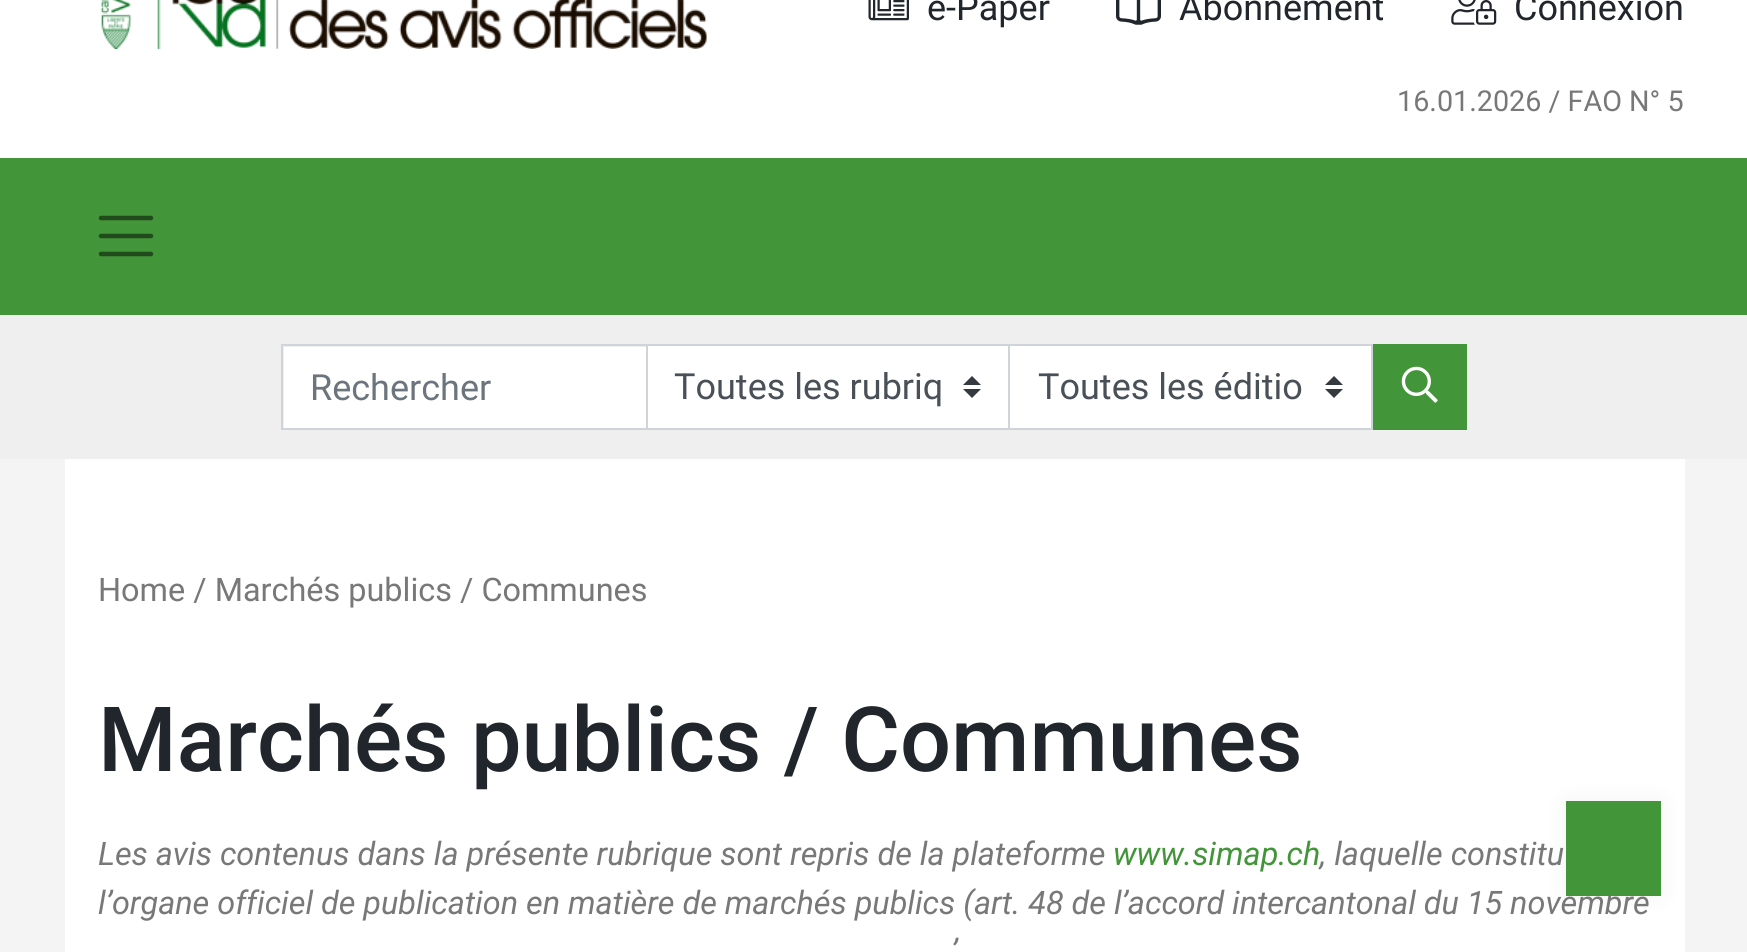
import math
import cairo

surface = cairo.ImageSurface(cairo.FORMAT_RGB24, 1747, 952)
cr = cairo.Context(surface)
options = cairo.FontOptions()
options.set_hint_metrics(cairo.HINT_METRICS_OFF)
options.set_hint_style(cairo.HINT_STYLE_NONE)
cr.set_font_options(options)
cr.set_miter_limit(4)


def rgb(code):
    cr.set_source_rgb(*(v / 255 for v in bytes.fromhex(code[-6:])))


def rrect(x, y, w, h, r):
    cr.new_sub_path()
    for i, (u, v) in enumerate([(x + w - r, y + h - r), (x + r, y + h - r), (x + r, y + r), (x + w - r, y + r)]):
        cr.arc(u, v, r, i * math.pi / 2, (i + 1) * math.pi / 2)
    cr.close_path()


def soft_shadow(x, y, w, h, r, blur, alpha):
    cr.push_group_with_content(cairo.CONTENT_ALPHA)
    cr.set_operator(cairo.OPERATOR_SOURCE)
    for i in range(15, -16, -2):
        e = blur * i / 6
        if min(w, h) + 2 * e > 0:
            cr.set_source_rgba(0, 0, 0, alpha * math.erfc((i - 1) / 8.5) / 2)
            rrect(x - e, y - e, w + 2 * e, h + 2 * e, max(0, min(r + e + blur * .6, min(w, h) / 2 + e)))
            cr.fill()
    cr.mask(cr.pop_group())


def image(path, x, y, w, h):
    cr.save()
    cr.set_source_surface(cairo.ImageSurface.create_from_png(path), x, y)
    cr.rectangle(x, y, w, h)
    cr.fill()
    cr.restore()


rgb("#ffffff")
cr.paint()
image("img/1.png", 100, 0, 607, 49)
image("img/2.png", 868, 0, 41, 21)
image("img/3.png", 1116, 0, 45, 25)
image("img/4.png", 1451, 0, 46, 25)
rgb("#439539")
cr.rectangle(0, 158, 1747, 157)
cr.fill()
cr.new_path()
cr.move_to(101, 218)
cr.line_to(151, 218)
cr.move_to(101, 236)
cr.line_to(151, 236)
cr.move_to(101, 254)
cr.line_to(151, 254)
rgb("#224b1d")
cr.set_line_width(4.5)
cr.set_line_cap(cairo.LINE_CAP_ROUND)
cr.stroke()
for x, y, w, h, color in [
    (0, 315, 1747, 144, "#efefef"),
    (284, 347, 362, 81, "#ffffff"),
    (281, 344, 727, 2, "#ced4da"),
    (281, 428, 727, 2, "#ced4da"),
    (281, 344, 2, 86, "#ced4da"),
    (648, 346, 360, 82, "#ffffff"),
]:
    rgb(color)
    cr.rectangle(x, y, w, h)
    cr.fill()
rgb("#343a40")
cr.new_path()
cr.move_to(972, 376)
cr.line_to(963, 385)
cr.line_to(981, 385)
cr.close_path()
cr.move_to(972, 398)
cr.line_to(963, 389)
cr.line_to(981, 389)
cr.close_path()
cr.fill()
rgb("#ced4da")
cr.rectangle(646, 344, 2, 86)
cr.fill()
rgb("#ffffff")
cr.rectangle(1010, 346, 361, 82)
cr.fill()
rgb("#343a40")
cr.new_path()
cr.move_to(1334, 376)
cr.line_to(1325, 385)
cr.line_to(1343, 385)
cr.close_path()
cr.move_to(1334, 398)
cr.line_to(1325, 389)
cr.line_to(1343, 389)
cr.close_path()
cr.fill()
cr.rectangle(1009, 345, 363, 84)
rgb("#ced4da")
cr.set_line_width(2)
cr.set_line_cap(cairo.LINE_CAP_BUTT)
cr.stroke()
rgb("#439539")
cr.rectangle(1373, 344, 94, 86)
cr.fill()
image("img/5.png", 1401, 366, 37, 37)
rgb("#f4f4f4")
cr.rectangle(0, 459, 1747, 493)
cr.fill()
rgb("#ffffff")
cr.rectangle(65, 459, 1620, 493)
cr.fill()
rgb("#000000")
soft_shadow(1566, 801, 95, 95, 0, 11, 0.05)
cr.select_font_face("Roboto")
cr.set_font_size(36)
rgb("#21252c")
for x, y, s in [
    (927, 20, "e-Paper"),
    (1179, 20, "Abonnement"),
    (1514, 20, "Connexion"),
]:
    cr.move_to(x, y)
    cr.show_text(s)
cr.set_font_size(28.75)
rgb("#787878")
cr.move_to(1397, 111)
cr.show_text("16.01.2026 / FAO N° 5")
cr.set_font_size(36)
rgb("#6c757d")
cr.move_to(310, 400)
cr.show_text("Rechercher")
rgb("#495057")
cr.move_to(674, 399)
cr.show_text("Toutes les rubriq")
cr.move_to(1038, 399)
cr.show_text("Toutes les éditio")
cr.set_font_size(32.4)
rgb("#787878")
cr.move_to(98, 601)
cr.show_text("Home / Marchés publics / Communes")
cr.select_font_face("Roboto Medium")
cr.set_font_size(90)
rgb("#21252c")
cr.move_to(98, 771)
cr.show_text("Marchés publics / Communes")
cr.select_font_face("Roboto", cairo.FONT_SLANT_ITALIC)
cr.set_font_size(32.4)
rgb("#787878")
cr.move_to(98, 865)
cr.show_text("Les avis contenus dans la présente rubrique sont repris de la plateforme")
rgb("#439539")
cr.move_to(1113, 865)
cr.show_text("www.simap.ch")
rgb("#787878")
for x, y, s in [
    (1320, 865, ", laquelle constitu"),
    (98, 914, "l’organe officiel de publication en matière de marchés publics (art. 48 de l’accord intercantonal du 15 novembre"),
    (951, 962, "’"),
]:
    cr.move_to(x, y)
    cr.show_text(s)
rgb("#439539")
cr.rectangle(1566, 801, 95, 95)
cr.fill()
surface.write_to_png("page.png")
